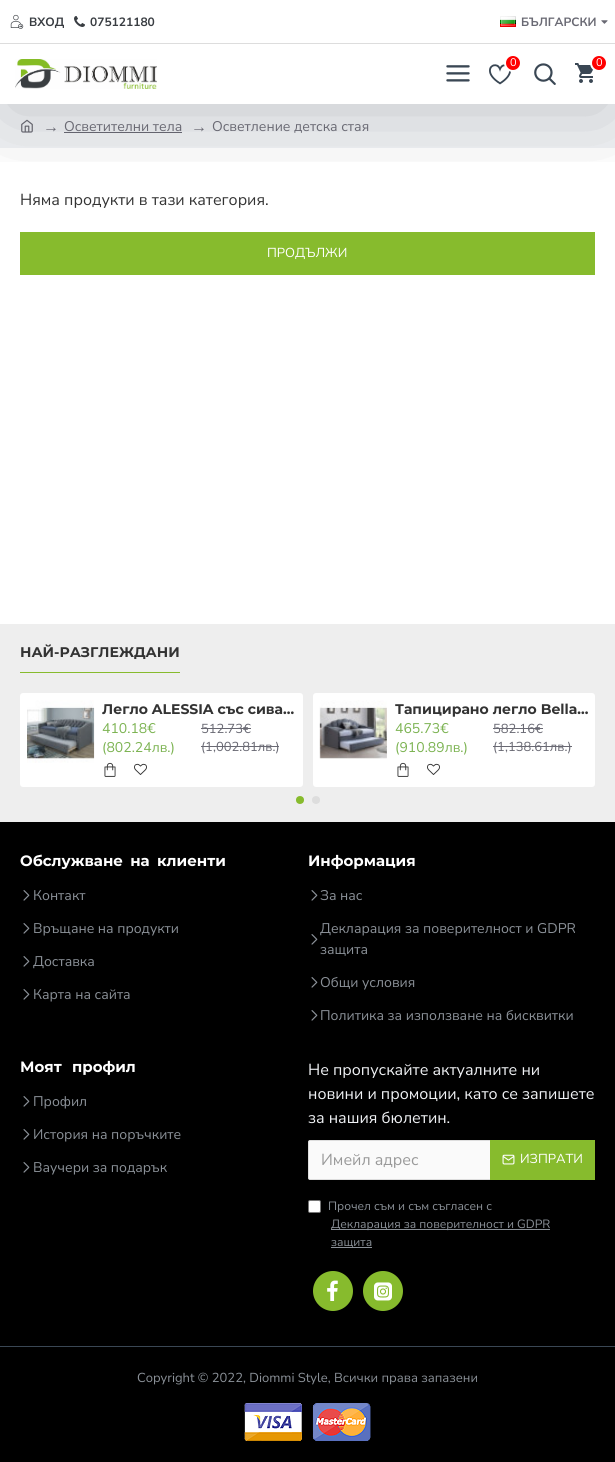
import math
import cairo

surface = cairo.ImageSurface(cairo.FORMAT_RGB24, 615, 1462)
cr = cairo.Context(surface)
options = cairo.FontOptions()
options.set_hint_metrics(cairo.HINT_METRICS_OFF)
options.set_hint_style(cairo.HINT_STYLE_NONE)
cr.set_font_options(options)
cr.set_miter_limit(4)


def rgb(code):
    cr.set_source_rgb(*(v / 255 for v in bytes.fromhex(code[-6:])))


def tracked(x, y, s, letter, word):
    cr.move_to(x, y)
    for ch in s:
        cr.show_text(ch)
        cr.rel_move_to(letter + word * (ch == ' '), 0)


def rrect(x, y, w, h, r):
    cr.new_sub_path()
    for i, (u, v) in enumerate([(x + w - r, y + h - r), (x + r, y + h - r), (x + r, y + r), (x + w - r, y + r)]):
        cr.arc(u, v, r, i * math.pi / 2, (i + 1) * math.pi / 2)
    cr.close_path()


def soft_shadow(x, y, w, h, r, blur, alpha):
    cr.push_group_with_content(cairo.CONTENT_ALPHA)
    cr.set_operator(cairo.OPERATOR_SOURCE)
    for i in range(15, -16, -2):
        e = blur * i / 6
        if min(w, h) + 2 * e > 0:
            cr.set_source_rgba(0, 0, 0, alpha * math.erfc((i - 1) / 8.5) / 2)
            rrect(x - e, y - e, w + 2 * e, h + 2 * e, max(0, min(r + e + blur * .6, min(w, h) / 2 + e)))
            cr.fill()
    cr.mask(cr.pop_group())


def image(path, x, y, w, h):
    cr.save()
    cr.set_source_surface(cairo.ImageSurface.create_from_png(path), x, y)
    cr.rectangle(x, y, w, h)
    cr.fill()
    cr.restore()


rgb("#ffffff")
cr.paint()
rgb("#f0f2f5")
cr.rectangle(0, 104, 615, 44)
cr.fill()
image("img/10.png", 21, 119, 12, 14)
rgb("#696973")
cr.rectangle(64, 132, 118, 1)
cr.fill()
rgb("#87bb2d")
cr.rectangle(20, 232, 575, 43)
cr.fill()
cr.save()
cr.rectangle(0, 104, 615, 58)
cr.clip()
rgb("#000000")
soft_shadow(10, 69, 595, 40, 0, 45, 0.2)
cr.restore()
rgb("#ffffff")
cr.rectangle(0, 0, 615, 43)
cr.fill()
rgb("#dddddd")
cr.rectangle(0, 43, 615, 1)
cr.fill()
image("img/1.png", 10, 14, 14, 15)
image("img/2.png", 74, 16, 11, 11)
image("img/3.png", 500, 16, 16, 11)
image("img/4.png", 601, 20, 7, 4)
image("img/5.png", 15, 59, 142, 30)
image("img/6.png", 446, 65, 24, 17)
image("img/7.png", 489, 64, 22, 21)
rgb("#ff0000")
cr.arc(513, 63, 8, 0, 2 * math.pi)
cr.fill_preserve()
rgb("#ffffff")
cr.stroke()
image("img/8.png", 534, 63, 22, 22)
image("img/9.png", 575, 63, 19, 20)
rgb("#ff0000")
cr.arc(599, 63, 8, 0, 2 * math.pi)
cr.fill_preserve()
rgb("#ffffff")
cr.stroke()
rgb("#eeeeee")
cr.rectangle(0, 624, 615, 198)
cr.fill()
rgb("#87bb2d")
cr.rectangle(20, 672, 160, 1)
cr.fill()
rgb("#ffffff")
rrect(20, 693, 283, 94, 3)
cr.fill()
image("img/11.png", 27, 700, 68, 63)
rgb("#696973")
cr.rectangle(201, 728, 50, 1)
cr.fill()
cr.rectangle(201, 746, 78, 1)
cr.fill()
image("img/12.png", 104, 762, 12, 15)
image("img/13.png", 134, 763, 13, 12)
rgb("#ffffff")
rrect(313, 693, 282, 94, 3)
cr.fill()
image("img/14.png", 319, 700, 68, 59)
rgb("#696973")
cr.rectangle(493, 728, 50, 1)
cr.fill()
cr.rectangle(493, 746, 79, 1)
cr.fill()
image("img/12.png", 397, 762, 12, 15)
image("img/13.png", 427, 763, 13, 12)
rgb("#87bb2d")
cr.arc(300, 800, 4, 0, 2 * math.pi)
cr.fill()
rgb("#dddddd")
cr.arc(316, 800, 4, 0, 2 * math.pi)
cr.fill()
rgb("#000000")
cr.rectangle(0, 822, 615, 524)
cr.fill()
image("img/15.png", 23, 890, 7, 11)
image("img/15.png", 23, 923, 7, 11)
image("img/15.png", 23, 956, 7, 11)
image("img/15.png", 23, 989, 7, 11)
image("img/15.png", 311, 890, 7, 11)
image("img/15.png", 311, 934, 7, 11)
image("img/15.png", 311, 977, 7, 11)
image("img/15.png", 311, 1010, 7, 11)
image("img/15.png", 23, 1096, 7, 11)
image("img/15.png", 23, 1129, 7, 11)
image("img/15.png", 23, 1162, 7, 11)
rgb("#fafafa")
rrect(308.5, 1140.5, 286, 39, 1.5)
cr.fill_preserve()
rgb("#dddddd")
cr.set_line_width(1)
cr.stroke()
rgb("#87bb2d")
cr.rectangle(490, 1140, 105, 40)
cr.fill()
image("img/16.png", 502, 1154, 13, 11)
rgb("#ffffff")
rrect(308.5, 1200.5, 12, 12, 1.5)
cr.fill_preserve()
rgb("#767676")
cr.stroke()
rgb("#8b9198")
cr.rectangle(331, 1229, 219, 1)
cr.fill()
cr.rectangle(331, 1247, 41, 1)
cr.fill()
rgb("#87bb2d")
cr.arc(333, 1291, 20, 0, 2 * math.pi)
cr.fill()
image("img/17.png", 327, 1280, 11, 21)
cr.arc(383, 1291, 20, 0, 2 * math.pi)
cr.fill()
image("img/18.png", 374, 1282, 18, 19)
rgb("#000000")
cr.rectangle(0, 1347, 615, 115)
cr.fill()
rgb("#3a4754")
cr.rectangle(0, 1346, 615, 1)
cr.fill()
image("img/19.png", 244, 1403, 58, 38)
image("img/20.png", 312, 1403, 59, 38)
cr.save()
cr.rectangle(29, 13, 35, 18)
cr.clip()
cr.select_font_face("Nunito Sans", cairo.FONT_SLANT_NORMAL, cairo.FONT_WEIGHT_BOLD)
cr.set_font_size(12)
rgb("#393d42")
cr.move_to(29, 26)
cr.show_text("ВХОД")
cr.restore()
cr.select_font_face("Nunito Sans", cairo.FONT_SLANT_NORMAL, cairo.FONT_WEIGHT_BOLD)
cr.set_font_size(12)
rgb("#393d42")
cr.move_to(90, 26)
cr.show_text("075121180")
rgb("#696973")
cr.move_to(521, 26)
cr.show_text("БЪЛГАРСКИ")
cr.select_font_face("Nunito Sans")
cr.set_font_size(11)
rgb("#ffffff")
cr.move_to(510, 66)
cr.show_text("0")
cr.move_to(596, 66)
cr.show_text("0")
cr.select_font_face("Liberation Serif")
cr.set_font_size(16)
rgb("#696973")
cr.move_to(43, 132)
cr.show_text("→")
cr.select_font_face("Nunito Sans")
cr.set_font_size(14)
cr.move_to(64, 131)
cr.show_text("Осветителни тела")
cr.select_font_face("Liberation Serif")
cr.set_font_size(16)
cr.move_to(191, 132)
cr.show_text("→")
cr.select_font_face("Nunito Sans")
cr.set_font_size(14)
cr.move_to(212, 131)
cr.show_text("Осветление детска стая")
cr.set_font_size(16)
rgb("#333333")
cr.move_to(20, 205)
cr.show_text("Няма продукти в тази категория.")
cr.set_font_size(13)
rgb("#ffffff")
cr.move_to(267, 257)
cr.show_text("ПРОДЪЛЖИ")
cr.select_font_face("Montserrat", cairo.FONT_SLANT_NORMAL, cairo.FONT_WEIGHT_BOLD)
cr.set_font_size(14)
rgb("#333333")
cr.move_to(20, 657)
cr.show_text("НАЙ-РАЗГЛЕЖДАНИ")
cr.move_to(102, 714)
cr.show_text("Легло ALESSIA със сива…")
cr.select_font_face("Nunito Sans")
rgb("#7cb352")
cr.move_to(102, 733)
cr.show_text("410.18€")
cr.move_to(102, 752)
cr.show_text("(802.24лв.)")
cr.set_font_size(13)
rgb("#696973")
cr.move_to(201, 733)
cr.show_text("512.73€")
cr.move_to(201, 751)
cr.show_text("(1,002.81лв.)")
cr.select_font_face("Montserrat", cairo.FONT_SLANT_NORMAL, cairo.FONT_WEIGHT_BOLD)
cr.set_font_size(14)
rgb("#333333")
cr.move_to(395, 714)
cr.show_text("Тапицирано легло Bella…")
cr.select_font_face("Nunito Sans")
rgb("#7cb352")
cr.move_to(395, 733)
cr.show_text("465.73€")
cr.move_to(395, 752)
cr.show_text("(910.89лв.)")
cr.set_font_size(13)
rgb("#696973")
cr.move_to(493, 733)
cr.show_text("582.16€")
cr.move_to(493, 751)
cr.show_text("(1,138.61лв.)")
cr.select_font_face("Montserrat", cairo.FONT_SLANT_NORMAL, cairo.FONT_WEIGHT_BOLD)
cr.set_font_size(15)
rgb("#ffffff")
tracked(20, 866, "Обслужване на клиенти", 0, 3)
cr.select_font_face("Nunito Sans")
cr.set_font_size(14)
rgb("#8b9198")
for x, y, s in [
    (33, 900, "Контакт"),
    (33, 933, "Връщане на продукти"),
    (33, 966, "Доставка"),
    (33, 999, "Карта на сайта"),
]:
    cr.move_to(x, y)
    cr.show_text(s)
cr.select_font_face("Montserrat", cairo.FONT_SLANT_NORMAL, cairo.FONT_WEIGHT_BOLD)
cr.set_font_size(15)
rgb("#ffffff")
cr.move_to(308, 866)
cr.show_text("Информация")
cr.select_font_face("Nunito Sans")
cr.set_font_size(14)
rgb("#8b9198")
for x, y, s in [
    (320, 900, "За нас"),
    (320, 933, "Декларация за поверителност и GDPR"),
    (320, 954, "защита"),
    (320, 987, "Общи условия"),
    (320, 1020, "Политика за използване на бисквитки"),
]:
    cr.move_to(x, y)
    cr.show_text(s)
cr.select_font_face("Montserrat", cairo.FONT_SLANT_NORMAL, cairo.FONT_WEIGHT_BOLD)
cr.set_font_size(15)
rgb("#ffffff")
tracked(20, 1072, "Моят профил", 0, 6)
cr.select_font_face("Nunito Sans")
cr.set_font_size(14)
rgb("#8b9198")
for x, y, s in [
    (33, 1106, "Профил"),
    (33, 1139, "История на поръчките"),
    (33, 1172, "Ваучери за подарък"),
]:
    cr.move_to(x, y)
    cr.show_text(s)
cr.set_font_size(16)
rgb("#f0f2f5")
for x, y, s in [
    (308, 1075, "Не пропускайте актуалните ни"),
    (308, 1099, "новини и промоции, като се запишете"),
    (308, 1123, "за нашия бюлетин."),
]:
    cr.move_to(x, y)
    cr.show_text(s)
rgb("#999999")
cr.move_to(321, 1165)
cr.show_text("Имейл адрес")
cr.set_font_size(13)
rgb("#ffffff")
cr.move_to(520, 1163)
cr.show_text("ИЗПРАТИ")
cr.set_font_size(12)
rgb("#8b9198")
for x, y, s in [
    (328, 1210, "Прочел съм и съм съгласен с"),
    (331, 1228, "Декларация за поверителност и GDPR"),
    (331, 1246, "защита"),
]:
    cr.move_to(x, y)
    cr.show_text(s)
cr.set_font_size(13)
cr.move_to(137, 1382)
cr.show_text("Copyright © 2022, Diommi Style, Всички права запазени")
surface.write_to_png("page.png")
